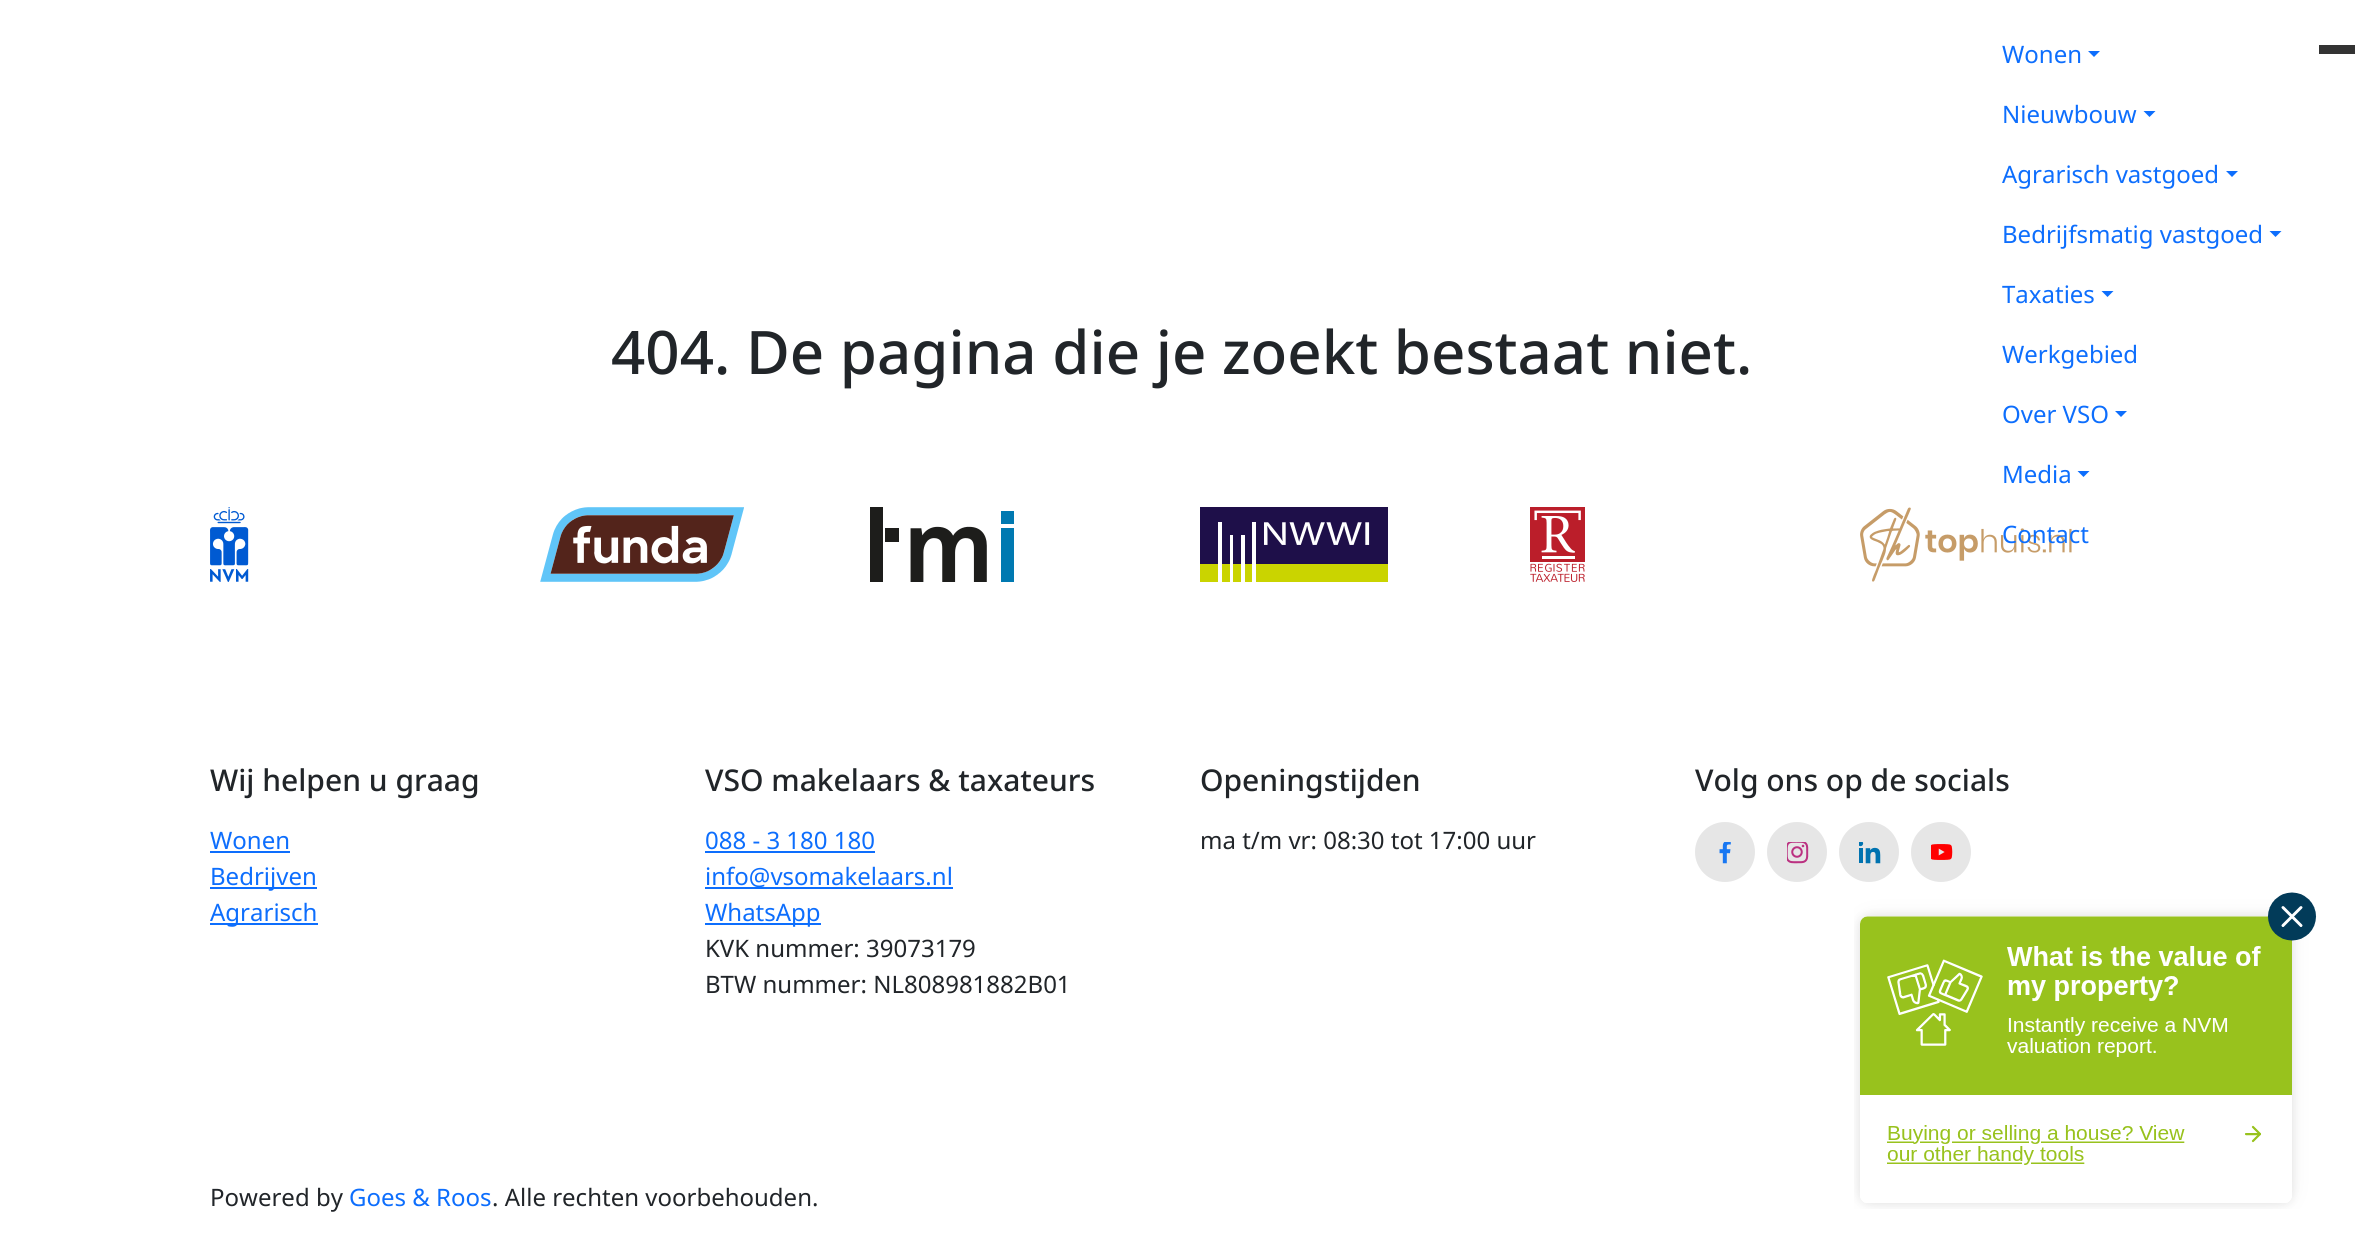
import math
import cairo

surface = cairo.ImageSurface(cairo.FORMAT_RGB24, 2364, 1238)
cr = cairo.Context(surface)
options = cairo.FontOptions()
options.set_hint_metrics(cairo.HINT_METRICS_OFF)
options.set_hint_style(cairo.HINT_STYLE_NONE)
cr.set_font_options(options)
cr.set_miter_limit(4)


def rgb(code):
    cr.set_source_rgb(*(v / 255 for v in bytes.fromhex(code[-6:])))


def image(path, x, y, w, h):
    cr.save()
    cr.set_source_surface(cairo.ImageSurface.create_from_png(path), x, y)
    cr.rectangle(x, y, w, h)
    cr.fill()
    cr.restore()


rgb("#ffffff")
cr.paint()
rgb("#0d6efd")
cr.new_path()
cr.move_to(2088, 51)
cr.line_to(2100, 51)
cr.line_to(2094, 57)
cr.close_path()
cr.fill()
cr.new_path()
cr.move_to(2143.5, 111)
cr.line_to(2155.5, 111)
cr.line_to(2149.5, 117)
cr.close_path()
cr.fill()
cr.new_path()
cr.move_to(2226, 171)
cr.line_to(2238, 171)
cr.line_to(2232, 177)
cr.close_path()
cr.fill()
cr.new_path()
cr.move_to(2269.5, 231)
cr.line_to(2281.5, 231)
cr.line_to(2275.5, 237)
cr.close_path()
cr.fill()
cr.new_path()
cr.move_to(2101.5, 291)
cr.line_to(2113.5, 291)
cr.line_to(2107.5, 297)
cr.close_path()
cr.fill()
cr.new_path()
cr.move_to(2115, 411)
cr.line_to(2127, 411)
cr.line_to(2121, 417)
cr.close_path()
cr.fill()
cr.new_path()
cr.move_to(2077.5, 471)
cr.line_to(2089.5, 471)
cr.line_to(2083.5, 477)
cr.close_path()
cr.fill()
rgb("#333333")
cr.rectangle(2319, 45, 36, 9)
cr.fill()
image("img/1.png", 210, 507, 39, 75)
image("img/2.png", 540, 507, 204, 75)
image("img/3.png", 870, 507, 144, 75)
image("img/4.png", 1200, 507, 188, 75)
image("img/5.png", 1530, 507, 55, 75)
image("img/6.png", 1860, 507, 212, 75)
for x, y, w, h, color in [
    (210, 851, 80, 2, "#0d6efd"),
    (210, 887, 107, 2, "#0d6efd"),
    (210, 923, 108, 2, "#0d6efd"),
    (705, 851, 170, 2, "#0d6efd"),
    (705, 887, 248, 2, "#0d6efd"),
    (705, 923, 116, 2, "#0d6efd"),
]:
    rgb(color)
    cr.rectangle(x, y, w, h)
    cr.fill()
rgb("#e6e6e6")
cr.arc(1725, 852, 30, 0, 2 * math.pi)
cr.fill()
image("img/7.png", 1719, 842, 12, 22)
cr.arc(1797, 852, 30, 0, 2 * math.pi)
cr.fill()
image("img/8.png", 1787, 842, 22, 22)
cr.arc(1869, 852, 30, 0, 2 * math.pi)
cr.fill()
image("img/9.png", 1859, 842, 22, 22)
cr.arc(1941, 852, 30, 0, 2 * math.pi)
cr.fill()
image("img/10.png", 1931, 844, 22, 16)
image("img/11.png", 1854, 892, 463, 317)
cr.select_font_face("Noto Sans Medium")
cr.set_font_size(60)
rgb("#212529")
cr.move_to(611, 374)
cr.show_text("404. De pagina die je zoekt bestaat niet.")
cr.select_font_face("Noto Sans")
cr.set_font_size(24)
rgb("#0d6efd")
for x, y, s in [
    (2002, 63, "Wonen"),
    (2002, 123, "Nieuwbouw"),
    (2002, 183, "Agrarisch vastgoed"),
    (2002, 243, "Bedrijfsmatig vastgoed"),
    (2002, 303, "Taxaties"),
    (2002, 363, "Werkgebied"),
    (2002, 423, "Over VSO"),
    (2002, 483, "Media"),
    (2002, 543, "Contact"),
]:
    cr.move_to(x, y)
    cr.show_text(s)
cr.select_font_face("Noto Sans Medium")
cr.set_font_size(30)
rgb("#212529")
cr.move_to(210, 791)
cr.show_text("Wij helpen u graag")
cr.select_font_face("Noto Sans")
cr.set_font_size(24)
rgb("#0d6efd")
for x, y, s in [
    (210, 849, "Wonen"),
    (210, 885, "Bedrijven"),
    (210, 921, "Agrarisch"),
]:
    cr.move_to(x, y)
    cr.show_text(s)
cr.select_font_face("Noto Sans Medium")
cr.set_font_size(30)
rgb("#212529")
cr.move_to(705, 791)
cr.show_text("VSO makelaars & taxateurs")
cr.select_font_face("Noto Sans")
cr.set_font_size(24)
rgb("#0d6efd")
for x, y, s in [
    (705, 849, "088 - 3 180 180"),
    (705, 885, "info@vsomakelaars.nl"),
    (705, 921, "WhatsApp"),
]:
    cr.move_to(x, y)
    cr.show_text(s)
rgb("#212529")
cr.move_to(705, 957)
cr.show_text("KVK nummer: 39073179")
cr.move_to(705, 993)
cr.show_text("BTW nummer: NL808981882B01")
cr.select_font_face("Noto Sans Medium")
cr.set_font_size(30)
cr.move_to(1200, 791)
cr.show_text("Openingstijden")
cr.select_font_face("Noto Sans")
cr.set_font_size(24)
cr.move_to(1200, 849)
cr.show_text("ma t/m vr: 08:30 tot 17:00 uur")
cr.select_font_face("Noto Sans Medium")
cr.set_font_size(30)
cr.move_to(1695, 791)
cr.show_text("Volg ons op de socials")
cr.select_font_face("Noto Sans")
cr.set_font_size(24)
cr.move_to(210, 1206)
cr.show_text("Powered by")
rgb("#0d6efd")
cr.move_to(349, 1206)
cr.show_text("Goes & Roos")
rgb("#212529")
cr.move_to(492, 1206)
cr.show_text(". Alle rechten voorbehouden.")
surface.write_to_png("page.png")
